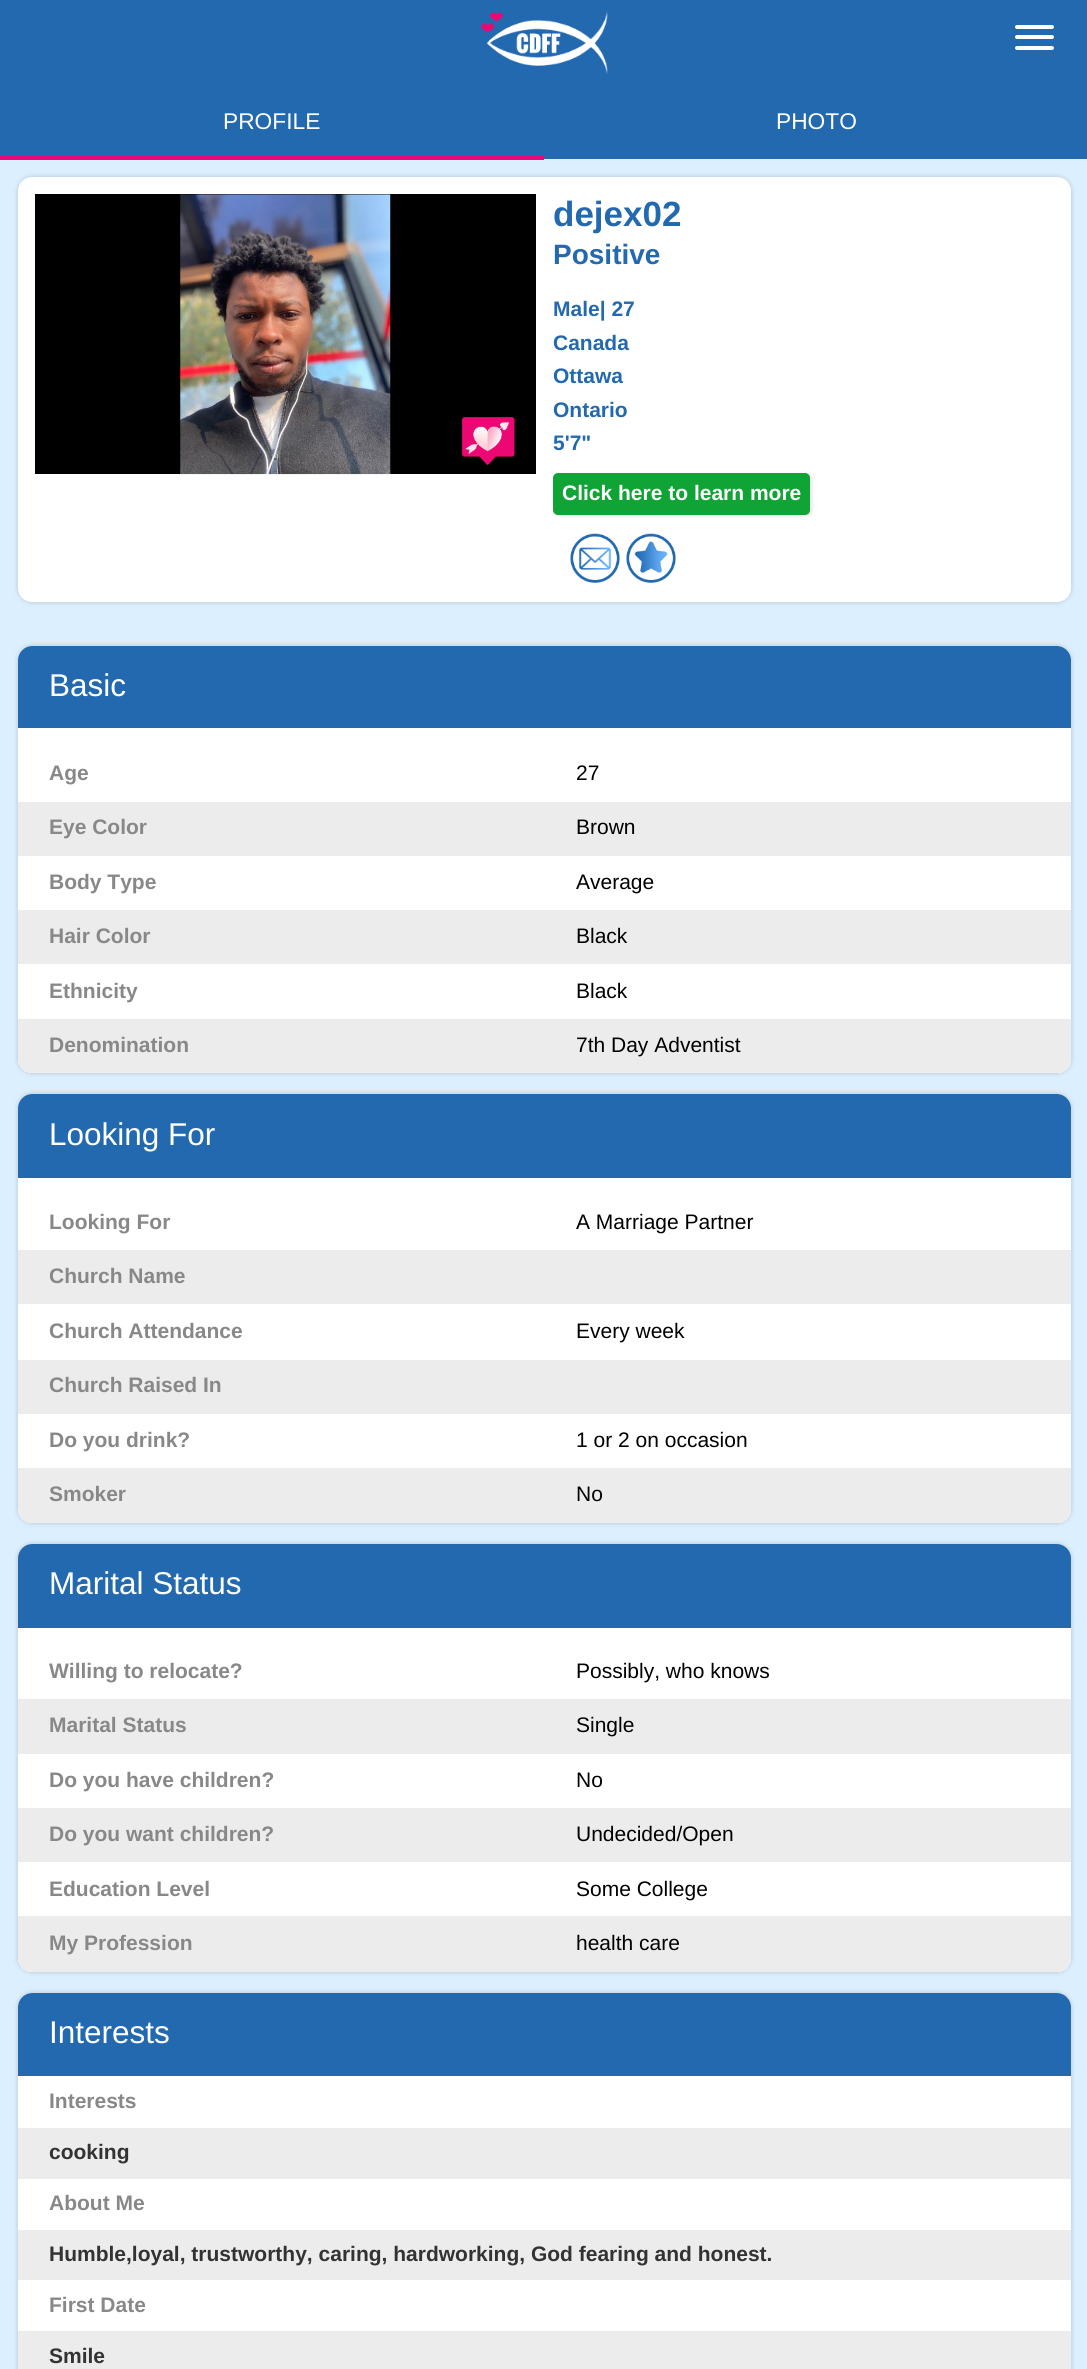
import math
import cairo

surface = cairo.ImageSurface(cairo.FORMAT_RGB24, 1087, 2369)
cr = cairo.Context(surface)
options = cairo.FontOptions()
options.set_hint_metrics(cairo.HINT_METRICS_OFF)
options.set_hint_style(cairo.HINT_STYLE_NONE)
cr.set_font_options(options)
cr.set_miter_limit(4)


def rgb(code):
    cr.set_source_rgb(*(v / 255 for v in bytes.fromhex(code[-6:])))


def rrect(x, y, w, h, r):
    cr.new_sub_path()
    for i, (u, v) in enumerate([(x + w - r, y + h - r), (x + r, y + h - r), (x + r, y + r), (x + w - r, y + r)]):
        cr.arc(u, v, r, i * math.pi / 2, (i + 1) * math.pi / 2)
    cr.close_path()


def soft_shadow(x, y, w, h, r, blur, alpha):
    cr.push_group_with_content(cairo.CONTENT_ALPHA)
    cr.set_operator(cairo.OPERATOR_SOURCE)
    for i in range(15, -16, -2):
        e = blur * i / 6
        if min(w, h) + 2 * e > 0:
            cr.set_source_rgba(0, 0, 0, alpha * math.erfc((i - 1) / 8.5) / 2)
            rrect(x - e, y - e, w + 2 * e, h + 2 * e, max(0, min(r + e + blur * .6, min(w, h) / 2 + e)))
            cr.fill()
    cr.mask(cr.pop_group())


def image(path, x, y, w, h):
    cr.save()
    cr.set_source_surface(cairo.ImageSurface.create_from_png(path), x, y)
    cr.rectangle(x, y, w, h)
    cr.fill()
    cr.restore()


rgb("#dceffe")
cr.paint()
rgb("#2269b0")
cr.rectangle(0, 0, 1087, 84)
cr.fill()
image("img/1.png", 481, 11, 127, 64)
rgb("#ffffff")
rrect(1015, 25, 39, 4, 2)
cr.fill()
rrect(1015, 35, 39, 4, 2)
cr.fill()
rrect(1015, 46, 39, 4, 2)
cr.fill()
for x, y, w, h, color in [
    (0, 84, 544, 72, "#2269b0"),
    (0, 156, 544, 4, "#eb0873"),
    (544, 84, 543, 75, "#2269b0"),
]:
    rgb(color)
    cr.rectangle(x, y, w, h)
    cr.fill()
rgb("#000000")
soft_shadow(18, 177, 1053, 425, 14, 2.5, 0.2)
rgb("#ffffff")
rrect(18, 177, 1053, 425, 14)
cr.fill()
rgb("#000000")
cr.rectangle(35, 194, 501, 280)
cr.fill()
image("img/2.png", 180, 194, 211, 281)
image("img/3.png", 462, 417, 53, 48)
rgb("#323232")
soft_shadow(555, 474, 257, 42, 5, 2, 0.14)
rgb("#0fa435")
rrect(553, 473, 257, 42, 5)
cr.fill()
image("img/4.png", 570, 533, 50, 50)
image("img/5.png", 626, 533, 50, 50)
rgb("#000000")
soft_shadow(18, 646, 1053, 427, 14, 2.5, 0.2)
rgb("#ffffff")
rrect(18, 646, 1053, 427, 14)
cr.fill()
rgb("#2269b0")
cr.new_path()
cr.move_to(32, 646)
cr.line_to(1057, 646)
cr.curve_to(1064.5, 646, 1071, 652.5, 1071, 660)
cr.line_to(1071, 728)
cr.line_to(18, 728)
cr.line_to(18, 660)
cr.curve_to(18, 652.5, 24.5, 646, 32, 646)
cr.close_path()
cr.fill()
rgb("#ffffff")
cr.new_path()
cr.move_to(25, 746)
cr.line_to(1064, 746)
cr.curve_to(1068, 746, 1071, 749, 1071, 753)
cr.line_to(1071, 1059)
cr.curve_to(1071, 1066.5, 1064.5, 1073, 1057, 1073)
cr.line_to(32, 1073)
cr.curve_to(24.5, 1073, 18, 1066.5, 18, 1059)
cr.line_to(18, 753)
cr.curve_to(18, 749, 21, 746, 25, 746)
cr.close_path()
cr.fill()
rgb("#ececec")
cr.rectangle(18, 802, 1053, 54)
cr.fill()
cr.rectangle(18, 910, 1053, 54)
cr.fill()
cr.new_path()
cr.move_to(18, 1019)
cr.line_to(1071, 1019)
cr.line_to(1071, 1059)
cr.curve_to(1071, 1066.5, 1064.5, 1073, 1057, 1073)
cr.line_to(32, 1073)
cr.curve_to(24.5, 1073, 18, 1066.5, 18, 1059)
cr.close_path()
cr.fill()
rgb("#000000")
soft_shadow(18, 1094, 1053, 429, 14, 2.5, 0.2)
cr.save()
rrect(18, 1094, 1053, 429, 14)
cr.clip()
soft_shadow(18, 1096, 1053, 428, 7, 1, 0.05)
cr.restore()
rgb("#ffffff")
rrect(18, 1094, 1053, 429, 14)
cr.fill()
rgb("#2269b0")
cr.new_path()
cr.move_to(32, 1094)
cr.line_to(1057, 1094)
cr.curve_to(1064.5, 1094, 1071, 1100.5, 1071, 1108)
cr.line_to(1071, 1178)
cr.line_to(18, 1178)
cr.line_to(18, 1108)
cr.curve_to(18, 1100.5, 24.5, 1094, 32, 1094)
cr.close_path()
cr.fill()
rgb("#ffffff")
cr.new_path()
cr.move_to(25, 1195)
cr.line_to(1064, 1195)
cr.curve_to(1068, 1195, 1071, 1198, 1071, 1202)
cr.line_to(1071, 1509)
cr.curve_to(1071, 1516.5, 1064.5, 1523, 1057, 1523)
cr.line_to(32, 1523)
cr.curve_to(24.5, 1523, 18, 1516.5, 18, 1509)
cr.line_to(18, 1202)
cr.curve_to(18, 1198, 21, 1195, 25, 1195)
cr.close_path()
cr.fill()
rgb("#ececec")
cr.rectangle(18, 1250, 1053, 54)
cr.fill()
cr.rectangle(18, 1360, 1053, 54)
cr.fill()
cr.new_path()
cr.move_to(18, 1468)
cr.line_to(1071, 1468)
cr.line_to(1071, 1509)
cr.curve_to(1071, 1516.5, 1064.5, 1523, 1057, 1523)
cr.line_to(32, 1523)
cr.curve_to(24.5, 1523, 18, 1516.5, 18, 1509)
cr.close_path()
cr.fill()
rgb("#000000")
soft_shadow(18, 1544, 1053, 428, 14, 2.5, 0.2)
rgb("#ffffff")
rrect(18, 1544, 1053, 428, 14)
cr.fill()
rgb("#2269b0")
cr.new_path()
cr.move_to(32, 1544)
cr.line_to(1057, 1544)
cr.curve_to(1064.5, 1544, 1071, 1550.5, 1071, 1558)
cr.line_to(1071, 1628)
cr.line_to(18, 1628)
cr.line_to(18, 1558)
cr.curve_to(18, 1550.5, 24.5, 1544, 32, 1544)
cr.close_path()
cr.fill()
rgb("#ffffff")
cr.new_path()
cr.move_to(25, 1645)
cr.line_to(1064, 1645)
cr.curve_to(1068, 1645, 1071, 1648, 1071, 1652)
cr.line_to(1071, 1958)
cr.curve_to(1071, 1965.5, 1064.5, 1972, 1057, 1972)
cr.line_to(32, 1972)
cr.curve_to(24.5, 1972, 18, 1965.5, 18, 1958)
cr.line_to(18, 1652)
cr.curve_to(18, 1648, 21, 1645, 25, 1645)
cr.close_path()
cr.fill()
rgb("#ececec")
cr.rectangle(18, 1699, 1053, 55)
cr.fill()
cr.rectangle(18, 1808, 1053, 54)
cr.fill()
cr.new_path()
cr.move_to(18, 1916)
cr.line_to(1071, 1916)
cr.line_to(1071, 1958)
cr.curve_to(1071, 1965.5, 1064.5, 1972, 1057, 1972)
cr.line_to(32, 1972)
cr.curve_to(24.5, 1972, 18, 1965.5, 18, 1958)
cr.close_path()
cr.fill()
rgb("#000000")
soft_shadow(18, 1993, 1053, 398, 14, 2.5, 0.2)
rgb("#ffffff")
rrect(18, 1993, 1053, 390, 14)
cr.fill()
rgb("#2269b0")
cr.new_path()
cr.move_to(32, 1993)
cr.line_to(1057, 1993)
cr.curve_to(1064.5, 1993, 1071, 1999.5, 1071, 2007)
cr.line_to(1071, 2076)
cr.line_to(18, 2076)
cr.line_to(18, 2007)
cr.curve_to(18, 1999.5, 24.5, 1993, 32, 1993)
cr.close_path()
cr.fill()
for x, y, w, h, color in [
    (18, 2128, 1053, 51, "#ececec"),
    (18, 2230, 1053, 50, "#ececec"),
    (18, 2331, 1053, 38, "#ececec"),
]:
    rgb(color)
    cr.rectangle(x, y, w, h)
    cr.fill()
cr.select_font_face("Liberation Sans")
cr.set_font_size(22.75)
rgb("#ffffff")
cr.move_to(223, 129)
cr.show_text("PROFILE")
cr.move_to(776, 129)
cr.show_text("PHOTO")
cr.select_font_face("Liberation Sans", cairo.FONT_SLANT_NORMAL, cairo.FONT_WEIGHT_BOLD)
cr.set_font_size(35)
rgb("#2269b0")
cr.move_to(553, 226)
cr.show_text("dejex02")
cr.set_font_size(28)
cr.move_to(553, 264)
cr.show_text("Positive")
cr.set_font_size(21)
for x, y, s in [
    (553, 316, "Male| 27"),
    (553, 350, "Canada"),
    (553, 383, "Ottawa"),
    (553, 417, "Ontario"),
    (553, 450, "5'7\""),
]:
    cr.move_to(x, y)
    cr.show_text(s)
rgb("#ffffff")
cr.move_to(562, 500)
cr.show_text("Click here to learn more")
cr.select_font_face("Liberation Sans")
cr.set_font_size(31.5)
cr.move_to(49, 696)
cr.show_text("Basic")
cr.select_font_face("Liberation Sans", cairo.FONT_SLANT_NORMAL, cairo.FONT_WEIGHT_BOLD)
cr.set_font_size(21)
rgb("#888888")
cr.move_to(49, 780)
cr.show_text("Age")
cr.select_font_face("Liberation Sans")
rgb("#000000")
cr.move_to(576, 780)
cr.show_text("27")
cr.select_font_face("Liberation Sans", cairo.FONT_SLANT_NORMAL, cairo.FONT_WEIGHT_BOLD)
rgb("#888888")
cr.move_to(49, 834)
cr.show_text("Eye Color")
cr.select_font_face("Liberation Sans")
rgb("#000000")
cr.move_to(576, 834)
cr.show_text("Brown")
cr.select_font_face("Liberation Sans", cairo.FONT_SLANT_NORMAL, cairo.FONT_WEIGHT_BOLD)
rgb("#888888")
cr.move_to(49, 889)
cr.show_text("Body Type")
cr.select_font_face("Liberation Sans")
rgb("#000000")
cr.move_to(576, 889)
cr.show_text("Average")
cr.select_font_face("Liberation Sans", cairo.FONT_SLANT_NORMAL, cairo.FONT_WEIGHT_BOLD)
rgb("#888888")
cr.move_to(49, 943)
cr.show_text("Hair Color")
cr.select_font_face("Liberation Sans")
rgb("#000000")
cr.move_to(576, 943)
cr.show_text("Black")
cr.select_font_face("Liberation Sans", cairo.FONT_SLANT_NORMAL, cairo.FONT_WEIGHT_BOLD)
rgb("#888888")
cr.move_to(49, 998)
cr.show_text("Ethnicity")
cr.select_font_face("Liberation Sans")
rgb("#000000")
cr.move_to(576, 998)
cr.show_text("Black")
cr.select_font_face("Liberation Sans", cairo.FONT_SLANT_NORMAL, cairo.FONT_WEIGHT_BOLD)
rgb("#888888")
cr.move_to(49, 1052)
cr.show_text("Denomination")
cr.select_font_face("Liberation Sans")
rgb("#000000")
cr.move_to(576, 1052)
cr.show_text("7th Day Adventist")
cr.set_font_size(31.5)
rgb("#ffffff")
cr.move_to(49, 1145)
cr.show_text("Looking For")
cr.select_font_face("Liberation Sans", cairo.FONT_SLANT_NORMAL, cairo.FONT_WEIGHT_BOLD)
cr.set_font_size(21)
rgb("#888888")
cr.move_to(49, 1229)
cr.show_text("Looking For")
cr.select_font_face("Liberation Sans")
rgb("#000000")
cr.move_to(576, 1229)
cr.show_text("A Marriage Partner")
cr.select_font_face("Liberation Sans", cairo.FONT_SLANT_NORMAL, cairo.FONT_WEIGHT_BOLD)
rgb("#888888")
cr.move_to(49, 1283)
cr.show_text("Church Name")
cr.move_to(49, 1338)
cr.show_text("Church Attendance")
cr.select_font_face("Liberation Sans")
rgb("#000000")
cr.move_to(576, 1338)
cr.show_text("Every week")
cr.select_font_face("Liberation Sans", cairo.FONT_SLANT_NORMAL, cairo.FONT_WEIGHT_BOLD)
rgb("#888888")
cr.move_to(49, 1392)
cr.show_text("Church Raised In")
cr.move_to(49, 1447)
cr.show_text("Do you drink?")
cr.select_font_face("Liberation Sans")
rgb("#000000")
cr.move_to(576, 1447)
cr.show_text("1 or 2 on occasion")
cr.select_font_face("Liberation Sans", cairo.FONT_SLANT_NORMAL, cairo.FONT_WEIGHT_BOLD)
rgb("#888888")
cr.move_to(49, 1501)
cr.show_text("Smoker")
cr.select_font_face("Liberation Sans")
rgb("#000000")
cr.move_to(576, 1501)
cr.show_text("No")
cr.set_font_size(31.5)
rgb("#ffffff")
cr.move_to(49, 1594)
cr.show_text("Marital Status")
cr.select_font_face("Liberation Sans", cairo.FONT_SLANT_NORMAL, cairo.FONT_WEIGHT_BOLD)
cr.set_font_size(21)
rgb("#888888")
cr.move_to(49, 1678)
cr.show_text("Willing to relocate?")
cr.select_font_face("Liberation Sans")
rgb("#000000")
cr.move_to(576, 1678)
cr.show_text("Possibly, who knows")
cr.select_font_face("Liberation Sans", cairo.FONT_SLANT_NORMAL, cairo.FONT_WEIGHT_BOLD)
rgb("#888888")
cr.move_to(49, 1732)
cr.show_text("Marital Status")
cr.select_font_face("Liberation Sans")
rgb("#000000")
cr.move_to(576, 1732)
cr.show_text("Single")
cr.select_font_face("Liberation Sans", cairo.FONT_SLANT_NORMAL, cairo.FONT_WEIGHT_BOLD)
rgb("#888888")
cr.move_to(49, 1787)
cr.show_text("Do you have children?")
cr.select_font_face("Liberation Sans")
rgb("#000000")
cr.move_to(576, 1787)
cr.show_text("No")
cr.select_font_face("Liberation Sans", cairo.FONT_SLANT_NORMAL, cairo.FONT_WEIGHT_BOLD)
rgb("#888888")
cr.move_to(49, 1841)
cr.show_text("Do you want children?")
cr.select_font_face("Liberation Sans")
rgb("#000000")
cr.move_to(576, 1841)
cr.show_text("Undecided/Open")
cr.select_font_face("Liberation Sans", cairo.FONT_SLANT_NORMAL, cairo.FONT_WEIGHT_BOLD)
rgb("#888888")
cr.move_to(49, 1896)
cr.show_text("Education Level")
cr.select_font_face("Liberation Sans")
rgb("#000000")
cr.move_to(576, 1896)
cr.show_text("Some College")
cr.select_font_face("Liberation Sans", cairo.FONT_SLANT_NORMAL, cairo.FONT_WEIGHT_BOLD)
rgb("#888888")
cr.move_to(49, 1950)
cr.show_text("My Profession")
cr.select_font_face("Liberation Sans")
rgb("#000000")
cr.move_to(576, 1950)
cr.show_text("health care")
cr.set_font_size(31.5)
rgb("#ffffff")
cr.move_to(49, 2043)
cr.show_text("Interests")
cr.select_font_face("Liberation Sans", cairo.FONT_SLANT_NORMAL, cairo.FONT_WEIGHT_BOLD)
cr.set_font_size(21)
rgb("#888888")
cr.move_to(49, 2108)
cr.show_text("Interests")
rgb("#333333")
cr.move_to(49, 2159)
cr.show_text("cooking")
rgb("#888888")
cr.move_to(49, 2210)
cr.show_text("About Me")
rgb("#333333")
cr.move_to(49, 2261)
cr.show_text("Humble,loyal, trustworthy, caring, hardworking, God fearing and honest.")
rgb("#888888")
cr.move_to(49, 2312)
cr.show_text("First Date")
rgb("#333333")
cr.move_to(49, 2363)
cr.show_text("Smile")
surface.write_to_png("page.png")
